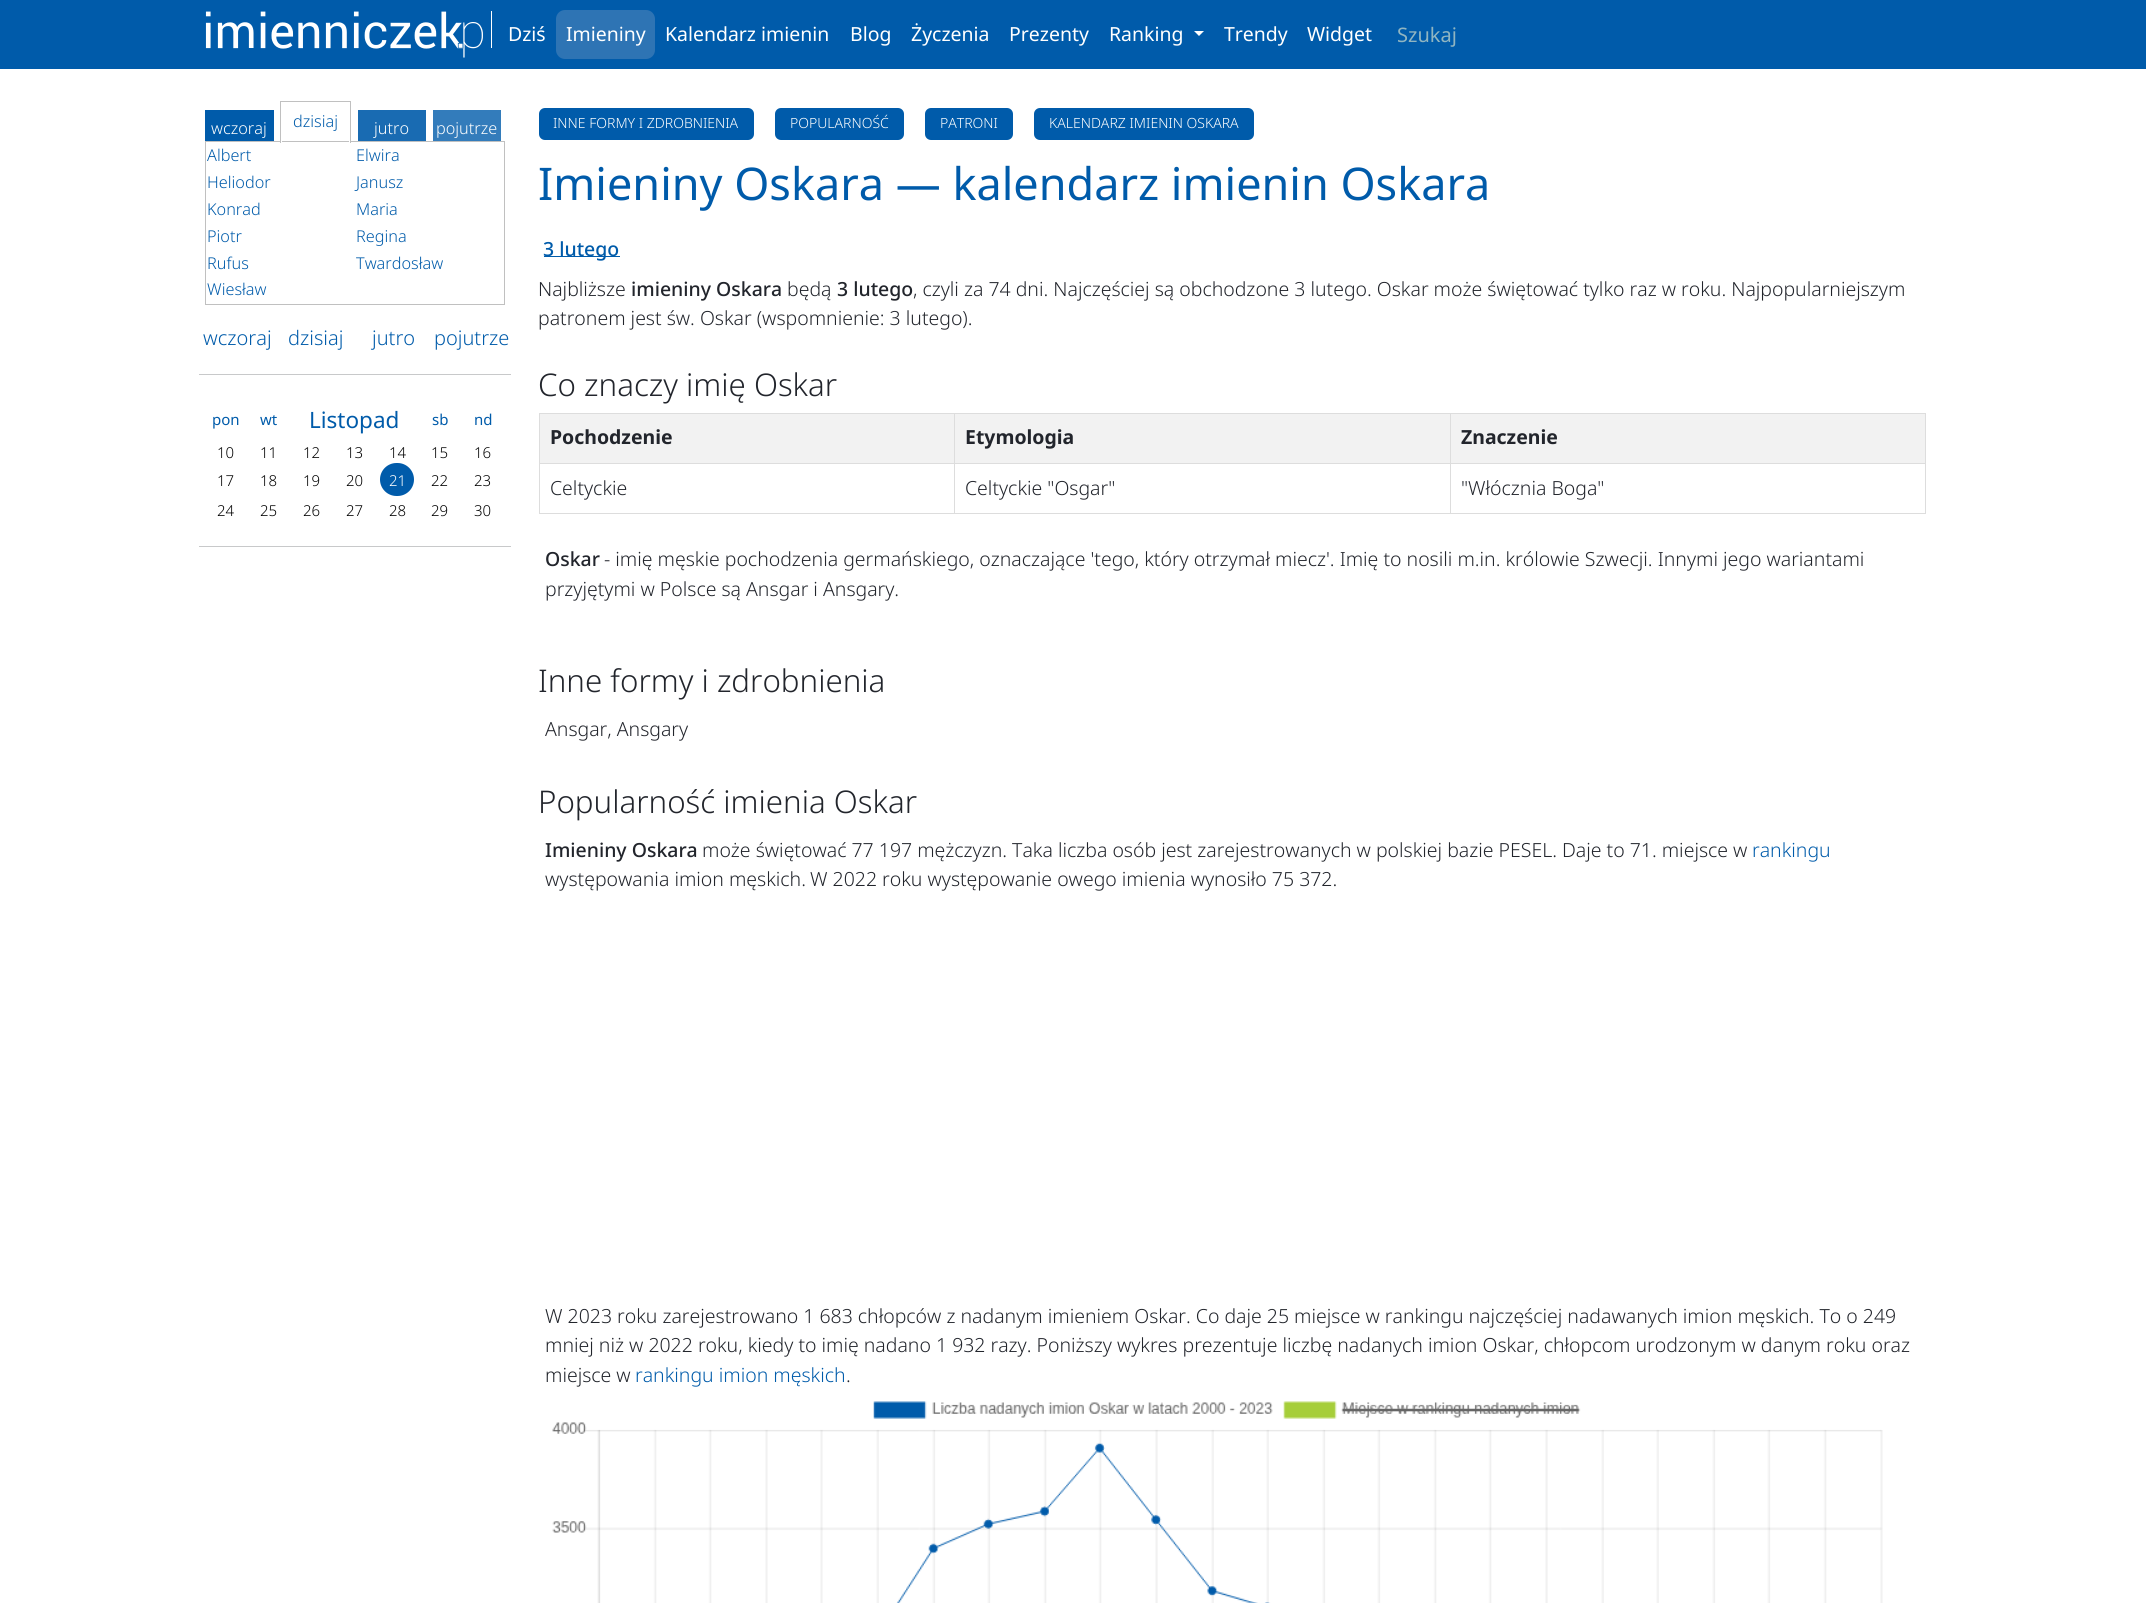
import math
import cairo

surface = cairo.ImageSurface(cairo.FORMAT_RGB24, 2146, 1603)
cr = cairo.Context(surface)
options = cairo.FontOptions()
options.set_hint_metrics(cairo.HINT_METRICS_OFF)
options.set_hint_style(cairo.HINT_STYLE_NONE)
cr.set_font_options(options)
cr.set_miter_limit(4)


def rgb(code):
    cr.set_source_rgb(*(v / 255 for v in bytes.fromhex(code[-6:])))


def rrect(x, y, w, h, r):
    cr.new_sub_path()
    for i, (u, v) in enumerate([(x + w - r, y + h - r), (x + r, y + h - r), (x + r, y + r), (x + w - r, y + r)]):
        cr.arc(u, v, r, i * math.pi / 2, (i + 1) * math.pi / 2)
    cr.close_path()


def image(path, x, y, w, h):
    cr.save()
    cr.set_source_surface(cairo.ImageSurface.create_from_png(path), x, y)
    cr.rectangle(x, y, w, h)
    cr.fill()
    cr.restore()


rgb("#ffffff")
cr.paint()
rgb("#005baa")
cr.rectangle(0, 0, 2146, 69)
cr.fill()
image("img/1.png", 205, 11, 287, 47)
rgb("#2e74b4")
rrect(556, 10, 99, 49, 9)
cr.fill()
rgb("#ffffff")
cr.new_path()
cr.move_to(1194, 31)
cr.line_to(1204, 31)
cr.line_to(1199, 36)
cr.close_path()
cr.fill()
rgb("#005baa")
cr.rectangle(205, 110, 69, 31)
cr.fill()
cr.rectangle(205.5, 141.5, 299, 163)
rgb("#c0c0c0")
cr.set_line_width(1)
cr.stroke()
cr.rectangle(280.5, 101.5, 70, 41)
cr.stroke()
cr.rectangle(281.5, 109.5, 68, 33)
rgb("#ffffff")
cr.stroke()
for x, y, w, h, color in [
    (358, 110, 68, 31, "#196bb2"),
    (433, 110, 68, 31, "#337cbb"),
    (199, 374, 312, 1, "#c8c9ca"),
]:
    rgb(color)
    cr.rectangle(x, y, w, h)
    cr.fill()
rgb("#005baa")
rrect(380, 463, 34, 33, 16.5)
cr.fill()
rgb("#c8c9ca")
cr.rectangle(199, 546, 312, 1)
cr.fill()
rgb("#005baa")
rrect(539, 108, 215, 32, 6)
cr.fill()
rrect(775, 108, 129, 32, 6)
cr.fill()
rrect(925, 108, 88, 32, 6)
cr.fill()
rrect(1034, 108, 220, 32, 6)
cr.fill()
for x, y, w, h, color in [
    (544, 256, 76, 1, "#005baa"),
    (540, 414, 414, 49, "#f2f2f2"),
    (1450, 413, 476, 1, "#dddddd"),
    (1450, 463, 476, 1, "#dddddd"),
    (1925, 463, 1, 51, "#dddddd"),
    (1450, 513, 476, 1, "#dddddd"),
    (1450, 463, 1, 51, "#dddddd"),
    (954, 463, 497, 1, "#dddddd"),
    (1450, 413, 1, 51, "#dddddd"),
    (954, 413, 497, 1, "#dddddd"),
    (954, 513, 497, 1, "#dddddd"),
    (954, 463, 1, 51, "#dddddd"),
    (539, 463, 416, 1, "#dddddd"),
    (954, 413, 1, 51, "#dddddd"),
    (539, 413, 416, 1, "#dddddd"),
    (539, 513, 416, 1, "#dddddd"),
    (539, 463, 1, 51, "#dddddd"),
    (539, 413, 1, 51, "#dddddd"),
    (955, 414, 495, 49, "#f2f2f2"),
    (1451, 414, 474, 49, "#f2f2f2"),
    (1925, 413, 1, 51, "#dddddd"),
]:
    rgb(color)
    cr.rectangle(x, y, w, h)
    cr.fill()
image("img/2.png", 552, 1401, 1331, 202)
cr.select_font_face("Noto Sans")
cr.set_font_size(19.45)
rgb("#ffffff")
for x, y, s in [
    (508, 41, "Dziś"),
    (566, 41, "Imieniny"),
    (665, 41, "Kalendarz imienin"),
    (850, 41, "Blog"),
    (911, 41, "Życzenia"),
    (1009, 41, "Prezenty"),
    (1109, 41, "Ranking"),
    (1224, 41, "Trendy"),
    (1307, 41, "Widget"),
]:
    cr.move_to(x, y)
    cr.show_text(s)
cr.set_font_size(20)
rgb("#90b5c1")
cr.move_to(1397, 42)
cr.show_text("Szukaj")
cr.select_font_face("Noto Sans Light")
cr.set_font_size(16.25)
rgb("#ffffff")
cr.move_to(211, 134)
cr.show_text("wczoraj")
rgb("#005baa")
cr.move_to(293, 127)
cr.show_text("dzisiaj")
rgb("#ffffff")
cr.move_to(374, 134)
cr.show_text("jutro")
cr.move_to(436, 134)
cr.show_text("pojutrze")
rgb("#005baa")
for x, y, s in [
    (207, 161, "Albert"),
    (356, 161, "Elwira"),
    (207, 188, "Heliodor"),
    (356, 188, "Janusz"),
    (207, 215, "Konrad"),
    (356, 215, "Maria"),
    (207, 242, "Piotr"),
    (356, 242, "Regina"),
    (207, 269, "Rufus"),
    (356, 269, "Twardosław"),
    (207, 295, "Wiesław"),
]:
    cr.move_to(x, y)
    cr.show_text(s)
cr.set_font_size(20)
for x, y, s in [
    (203, 345, "wczoraj"),
    (288, 345, "dzisiaj"),
    (372, 345, "jutro"),
    (434, 345, "pojutrze"),
]:
    cr.move_to(x, y)
    cr.show_text(s)
cr.select_font_face("Noto Sans")
cr.set_font_size(15)
cr.move_to(212, 425)
cr.show_text("pon")
cr.move_to(260, 425)
cr.show_text("wt")
cr.set_font_size(22.5)
cr.move_to(309, 428)
cr.show_text("Listopad")
cr.set_font_size(15)
cr.move_to(432, 425)
cr.show_text("sb")
cr.move_to(474, 425)
cr.show_text("nd")
cr.select_font_face("Noto Sans Light")
rgb("#000000")
for x, y, s in [
    (217, 458, "10"),
    (260, 458, "11"),
    (303, 458, "12"),
    (346, 458, "13"),
    (389, 458, "14"),
    (431, 458, "15"),
    (474, 458, "16"),
    (217, 486, "17"),
    (260, 486, "18"),
    (303, 486, "19"),
    (346, 486, "20"),
]:
    cr.move_to(x, y)
    cr.show_text(s)
rgb("#ffffff")
cr.move_to(389, 486)
cr.show_text("21")
rgb("#000000")
for x, y, s in [
    (431, 486, "22"),
    (474, 486, "23"),
    (217, 516, "24"),
    (260, 516, "25"),
    (303, 516, "26"),
    (346, 516, "27"),
    (389, 516, "28"),
    (431, 516, "29"),
    (474, 516, "30"),
]:
    cr.move_to(x, y)
    cr.show_text(s)
cr.set_font_size(14)
rgb("#ffffff")
for x, y, s in [
    (553, 128, "INNE FORMY I ZDROBNIENIA"),
    (790, 128, "POPULARNOŚĆ"),
    (940, 128, "PATRONI"),
    (1049, 128, "KALENDARZ IMIENIN OSKARA"),
]:
    cr.move_to(x, y)
    cr.show_text(s)
cr.select_font_face("Noto Sans")
cr.set_font_size(45)
rgb("#005baa")
cr.move_to(538, 200)
cr.show_text("Imieniny Oskara — kalendarz imienin Oskara")
cr.select_font_face("Noto Sans Medium")
cr.set_font_size(19.45)
cr.move_to(543, 256)
cr.show_text("3 lutego")
cr.select_font_face("Noto Sans Light")
rgb("#22252c")
cr.move_to(538, 296)
cr.show_text("Najbliższe")
cr.select_font_face("Noto Sans Medium")
cr.move_to(631, 296)
cr.show_text("imieniny Oskara")
cr.select_font_face("Noto Sans Light")
cr.move_to(787, 296)
cr.show_text("będą")
cr.select_font_face("Noto Sans Medium")
cr.move_to(837, 296)
cr.show_text("3 lutego")
cr.select_font_face("Noto Sans Light")
cr.move_to(913, 296)
cr.show_text(", czyli za 74 dni. Najczęściej są obchodzone 3 lutego. Oskar może świętować tylko raz w roku. Najpopularniejszym")
cr.move_to(538, 325)
cr.show_text("patronem jest św. Oskar (wspomnienie: 3 lutego).")
cr.set_font_size(31.25)
cr.move_to(538, 396)
cr.show_text("Co znaczy imię Oskar")
cr.select_font_face("Noto Sans", cairo.FONT_SLANT_NORMAL, cairo.FONT_WEIGHT_BOLD)
cr.set_font_size(19.45)
for x, y, s in [
    (550, 444, "Pochodzenie"),
    (965, 444, "Etymologia"),
    (1461, 444, "Znaczenie"),
]:
    cr.move_to(x, y)
    cr.show_text(s)
cr.select_font_face("Noto Sans Light")
for x, y, s in [
    (550, 495, "Celtyckie"),
    (965, 495, "Celtyckie \"Osgar\""),
    (1461, 495, "\"Włócznia Boga\""),
]:
    cr.move_to(x, y)
    cr.show_text(s)
cr.select_font_face("Noto Sans Medium")
cr.move_to(545, 566)
cr.show_text("Oskar")
cr.select_font_face("Noto Sans Light")
cr.move_to(604, 566)
cr.show_text("- imię męskie pochodzenia germańskiego, oznaczające 'tego, który otrzymał miecz'. Imię to nosili m.in. królowie Szwecji. Innymi jego wariantami")
cr.move_to(545, 596)
cr.show_text("przyjętymi w Polsce są Ansgar i Ansgary.")
cr.set_font_size(31.25)
cr.move_to(538, 692)
cr.show_text("Inne formy i zdrobnienia")
cr.set_font_size(19.45)
cr.move_to(545, 736)
cr.show_text("Ansgar, Ansgary")
cr.set_font_size(31.25)
cr.move_to(538, 813)
cr.show_text("Popularność imienia Oskar")
cr.select_font_face("Noto Sans Medium")
cr.set_font_size(19.45)
cr.move_to(545, 857)
cr.show_text("Imieniny Oskara")
cr.select_font_face("Noto Sans Light")
cr.move_to(702, 857)
cr.show_text("może świętować 77 197 mężczyzn. Taka liczba osób jest zarejestrowanych w polskiej bazie PESEL. Daje to 71. miejsce w")
rgb("#005baa")
cr.move_to(1752, 857)
cr.show_text("rankingu")
rgb("#22252c")
for x, y, s in [
    (545, 886, "występowania imion męskich."),
    (810, 886, "W 2022 roku występowanie owego imienia wynosiło 75 372."),
    (545, 1323, "W 2023 roku zarejestrowano 1 683 chłopców z nadanym imieniem Oskar. Co daje 25 miejsce w rankingu najczęściej nadawanych imion męskich. To o 249"),
    (545, 1352, "mniej niż w 2022 roku, kiedy to imię nadano 1 932 razy. Poniższy wykres prezentuje liczbę nadanych imion Oskar, chłopcom urodzonym w danym roku oraz"),
    (545, 1382, "miejsce w"),
]:
    cr.move_to(x, y)
    cr.show_text(s)
rgb("#005baa")
cr.move_to(635, 1382)
cr.show_text("rankingu imion męskich")
rgb("#22252c")
cr.move_to(846, 1382)
cr.show_text(".")
surface.write_to_png("page.png")
